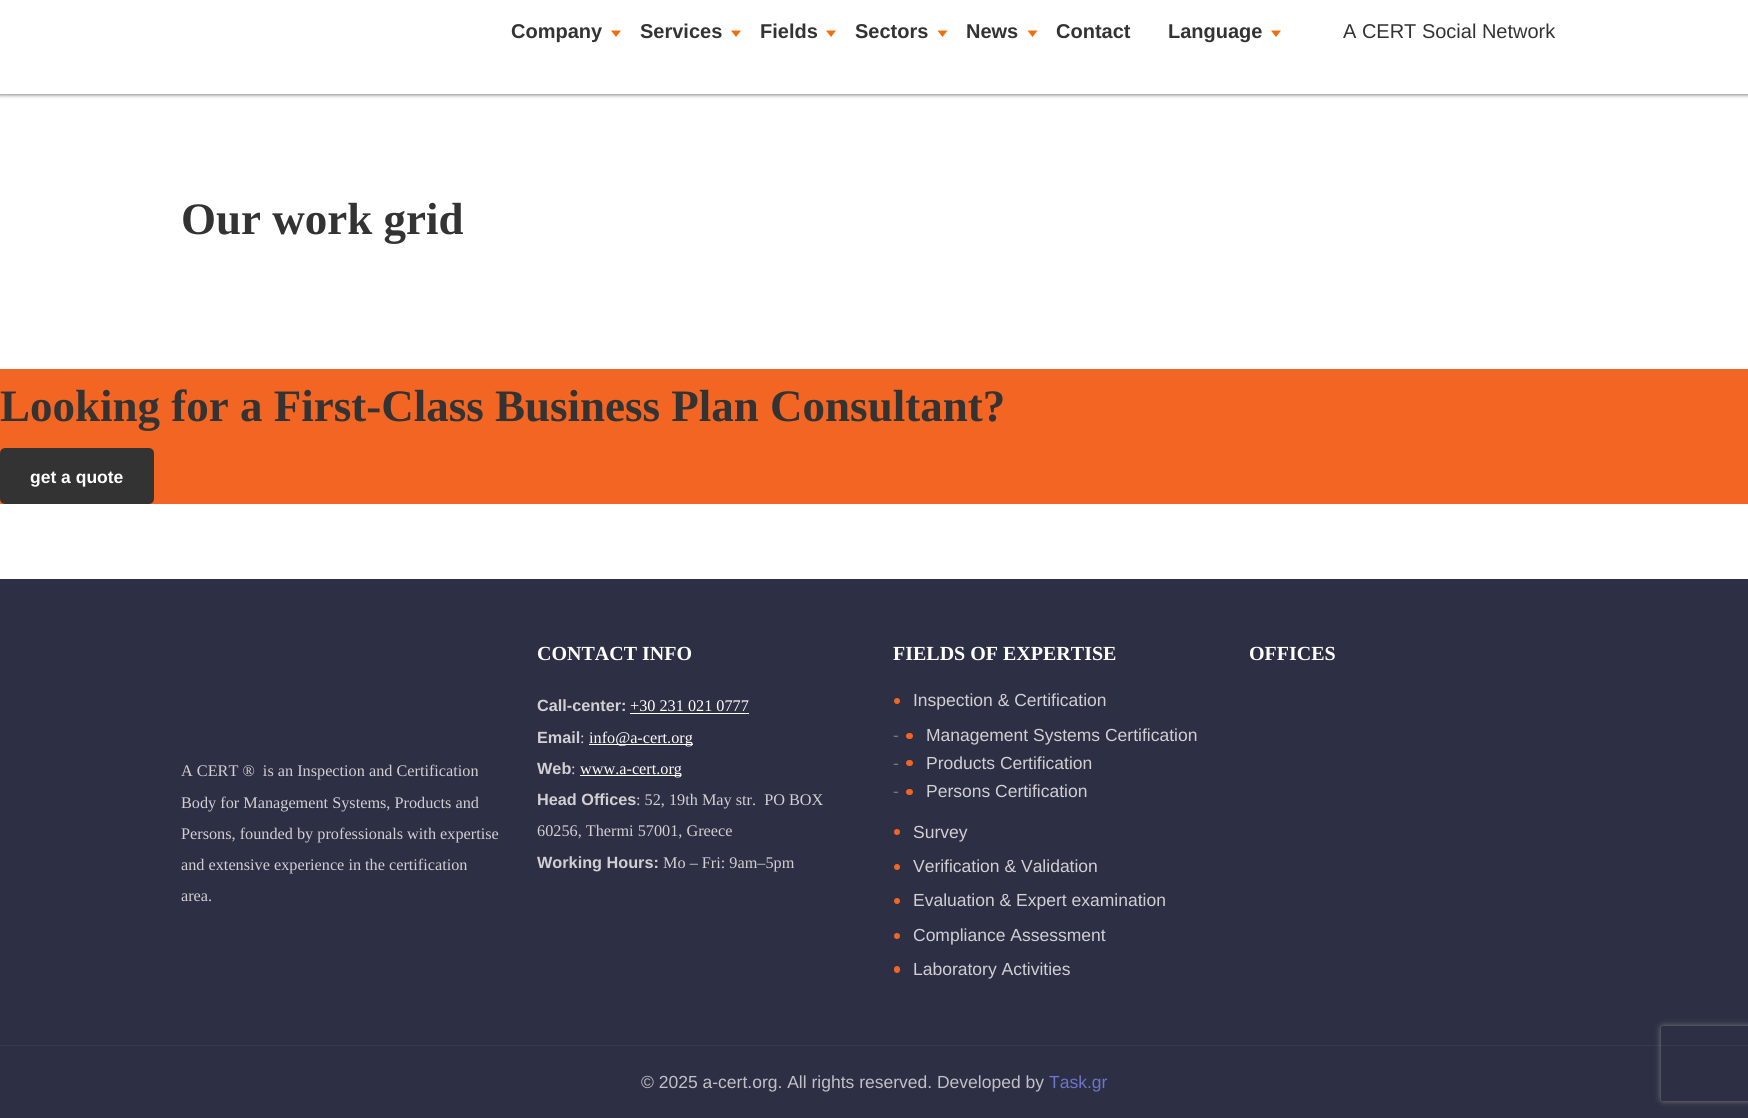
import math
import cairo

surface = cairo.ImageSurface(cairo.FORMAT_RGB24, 1748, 1118)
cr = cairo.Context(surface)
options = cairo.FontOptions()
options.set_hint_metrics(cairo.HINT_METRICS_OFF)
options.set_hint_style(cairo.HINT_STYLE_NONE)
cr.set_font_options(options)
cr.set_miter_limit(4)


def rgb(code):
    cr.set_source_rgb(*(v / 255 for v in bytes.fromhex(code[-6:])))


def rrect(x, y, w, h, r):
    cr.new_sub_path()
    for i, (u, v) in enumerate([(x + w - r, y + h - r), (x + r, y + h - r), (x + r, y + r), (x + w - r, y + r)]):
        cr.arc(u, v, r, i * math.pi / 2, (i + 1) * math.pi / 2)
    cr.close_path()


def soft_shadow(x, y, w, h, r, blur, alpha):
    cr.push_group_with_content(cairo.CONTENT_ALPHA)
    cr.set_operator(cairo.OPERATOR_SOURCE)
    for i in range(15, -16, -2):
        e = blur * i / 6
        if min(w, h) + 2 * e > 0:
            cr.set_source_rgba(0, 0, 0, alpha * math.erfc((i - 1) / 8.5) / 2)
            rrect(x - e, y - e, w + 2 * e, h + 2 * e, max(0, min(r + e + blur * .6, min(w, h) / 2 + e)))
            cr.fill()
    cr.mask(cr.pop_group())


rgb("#ffffff")
cr.paint()
cr.save()
cr.set_fill_rule(cairo.FILL_RULE_EVEN_ODD)
cr.new_path()
cr.move_to(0, 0)
cr.line_to(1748, 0)
cr.line_to(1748, 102)
cr.line_to(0, 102)
cr.close_path()
cr.move_to(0, -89)
cr.line_to(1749, -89)
cr.line_to(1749, 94)
cr.line_to(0, 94)
cr.close_path()
cr.clip()
rgb("#000000")
soft_shadow(0, -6, 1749, 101, 0, 2, 0.5)
cr.restore()
cr.set_source_rgba(1, 1, 1, 0.7)
cr.rectangle(0, 93, 1748, 1)
cr.fill()
rgb("#f36d08")
cr.new_path()
cr.move_to(611, 30.5)
cr.line_to(621, 30.5)
cr.line_to(616, 37)
cr.close_path()
cr.fill()
cr.new_path()
cr.move_to(731, 30.5)
cr.line_to(741, 30.5)
cr.line_to(736, 37)
cr.close_path()
cr.fill()
cr.new_path()
cr.move_to(826, 30.5)
cr.line_to(836, 30.5)
cr.line_to(831, 37)
cr.close_path()
cr.fill()
cr.new_path()
cr.move_to(937.5, 30.5)
cr.line_to(947.5, 30.5)
cr.line_to(942.5, 37)
cr.close_path()
cr.fill()
cr.new_path()
cr.move_to(1027.5, 30.5)
cr.line_to(1037.5, 30.5)
cr.line_to(1032.5, 37)
cr.close_path()
cr.fill()
cr.new_path()
cr.move_to(1271, 30.5)
cr.line_to(1281, 30.5)
cr.line_to(1276, 37)
cr.close_path()
cr.fill()
rgb("#f36523")
cr.rectangle(0, 369, 1748, 135)
cr.fill()
rgb("#333333")
rrect(2, 450, 150, 52, 3)
cr.fill_preserve()
cr.set_line_width(4)
cr.stroke()
for x, y, w, h, color in [
    (0, 579, 1748, 539, "#2d2f44"),
    (630, 713, 119, 1, "#ffffff"),
    (589, 744, 104, 1, "#ffffff"),
    (580, 775, 101, 1, "#ffffff"),
]:
    rgb(color)
    cr.rectangle(x, y, w, h)
    cr.fill()
rgb("#f36523")
cr.arc(897, 701, 3, 0, 2 * math.pi)
cr.fill()
rrect(906, 733, 7, 6, 3)
cr.fill()
rrect(906, 760, 7, 6, 3)
cr.fill()
rrect(906, 789, 7, 6, 3)
cr.fill()
cr.arc(897, 832, 3, 0, 2 * math.pi)
cr.fill()
cr.arc(897, 867, 3, 0, 2 * math.pi)
cr.fill()
cr.arc(897, 901, 3, 0, 2 * math.pi)
cr.fill()
cr.arc(897, 936, 3, 0, 2 * math.pi)
cr.fill()
rrect(894, 966, 6, 7, 3)
cr.fill()
rgb("#383a4e")
cr.rectangle(0, 1045, 1748, 1)
cr.fill()
cr.save()
cr.set_fill_rule(cairo.FILL_RULE_EVEN_ODD)
cr.new_path()
cr.move_to(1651, 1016)
cr.line_to(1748, 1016)
cr.line_to(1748, 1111)
cr.line_to(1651, 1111)
cr.close_path()
cr.move_to(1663.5, 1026)
cr.line_to(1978.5, 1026)
cr.curve_to(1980, 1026, 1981, 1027, 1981, 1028.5)
cr.line_to(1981, 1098.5)
cr.curve_to(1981, 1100, 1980, 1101, 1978.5, 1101)
cr.line_to(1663.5, 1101)
cr.curve_to(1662, 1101, 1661, 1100, 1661, 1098.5)
cr.line_to(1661, 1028.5)
cr.curve_to(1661, 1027, 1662, 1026, 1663.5, 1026)
cr.close_path()
cr.clip()
rgb("#808080")
soft_shadow(1661, 1026, 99, 75, 2.5, 3, 1)
cr.restore()
cr.select_font_face("Liberation Sans", cairo.FONT_SLANT_NORMAL, cairo.FONT_WEIGHT_BOLD)
cr.set_font_size(20)
rgb("#333333")
for x, y, s in [
    (511, 38, "Company"),
    (640, 38, "Services"),
    (760, 38, "Fields"),
    (855, 38, "Sectors"),
    (966, 38, "News"),
    (1056, 38, "Contact"),
    (1168, 38, "Language"),
]:
    cr.move_to(x, y)
    cr.show_text(s)
cr.select_font_face("Liberation Sans")
cr.move_to(1343, 38)
cr.show_text("A CERT Social Network")
cr.select_font_face("Liberation Serif", cairo.FONT_SLANT_NORMAL, cairo.FONT_WEIGHT_BOLD)
cr.set_font_size(45)
cr.move_to(181, 234)
cr.show_text("Our work grid")
cr.move_to(0, 421)
cr.show_text("Looking for a First-Class Business Plan Consultant?")
cr.select_font_face("Liberation Sans", cairo.FONT_SLANT_NORMAL, cairo.FONT_WEIGHT_BOLD)
cr.set_font_size(17.5)
rgb("#ffffff")
cr.move_to(30, 483)
cr.show_text("get a quote")
cr.select_font_face("Liberation Serif", cairo.FONT_SLANT_NORMAL, cairo.FONT_WEIGHT_BOLD)
cr.set_font_size(20)
cr.move_to(537, 660)
cr.show_text("CONTACT INFO")
cr.select_font_face("Liberation Sans", cairo.FONT_SLANT_NORMAL, cairo.FONT_WEIGHT_BOLD)
cr.set_font_size(16.25)
rgb("#d0d0d3")
cr.move_to(537, 711)
cr.show_text("Call-center:")
cr.select_font_face("Liberation Serif")
rgb("#ffffff")
cr.move_to(630, 711)
cr.show_text("+30 231 021 0777")
cr.select_font_face("Liberation Sans", cairo.FONT_SLANT_NORMAL, cairo.FONT_WEIGHT_BOLD)
rgb("#d0d0d3")
cr.move_to(537, 743)
cr.show_text("Email")
cr.select_font_face("Liberation Serif")
cr.move_to(580, 743)
cr.show_text(":")
rgb("#ffffff")
cr.move_to(589, 743)
cr.show_text("info@a-cert.org")
cr.select_font_face("Liberation Sans", cairo.FONT_SLANT_NORMAL, cairo.FONT_WEIGHT_BOLD)
rgb("#d0d0d3")
cr.move_to(537, 774)
cr.show_text("Web")
cr.select_font_face("Liberation Serif")
cr.move_to(571, 774)
cr.show_text(":")
rgb("#ffffff")
cr.move_to(580, 774)
cr.show_text("www.a-cert.org")
cr.select_font_face("Liberation Sans", cairo.FONT_SLANT_NORMAL, cairo.FONT_WEIGHT_BOLD)
rgb("#d0d0d3")
cr.move_to(537, 805)
cr.show_text("Head Offices")
cr.select_font_face("Liberation Serif")
cr.move_to(636, 805)
cr.show_text(": 52, 19th May str.  PO BOX")
cr.move_to(537, 836)
cr.show_text("60256, Thermi 57001, Greece")
cr.select_font_face("Liberation Sans", cairo.FONT_SLANT_NORMAL, cairo.FONT_WEIGHT_BOLD)
cr.move_to(537, 868)
cr.show_text("Working Hours:")
cr.select_font_face("Liberation Serif")
cr.move_to(663, 868)
cr.show_text("Mo – Fri: 9am–5pm")
cr.select_font_face("Liberation Serif", cairo.FONT_SLANT_NORMAL, cairo.FONT_WEIGHT_BOLD)
cr.set_font_size(20)
rgb("#ffffff")
cr.move_to(893, 660)
cr.show_text("FIELDS OF EXPERTISE")
cr.select_font_face("Liberation Sans")
cr.set_font_size(17.5)
rgb("#d0d0d3")
cr.move_to(913, 706)
cr.show_text("Inspection & Certification")
rgb("#777777")
cr.move_to(893, 741)
cr.show_text("-")
rgb("#d0d0d3")
cr.move_to(926, 741)
cr.show_text("Management Systems Certification")
rgb("#777777")
cr.move_to(893, 769)
cr.show_text("-")
rgb("#d0d0d3")
cr.move_to(926, 769)
cr.show_text("Products Certification")
rgb("#777777")
cr.move_to(893, 797)
cr.show_text("-")
rgb("#d0d0d3")
for x, y, s in [
    (926, 797, "Persons Certification"),
    (913, 838, "Survey"),
    (913, 872, "Verification & Validation"),
    (913, 906, "Evaluation & Expert examination"),
    (913, 941, "Compliance Assessment"),
    (913, 975, "Laboratory Activities"),
]:
    cr.move_to(x, y)
    cr.show_text(s)
cr.select_font_face("Liberation Serif", cairo.FONT_SLANT_NORMAL, cairo.FONT_WEIGHT_BOLD)
cr.set_font_size(20)
rgb("#ffffff")
cr.move_to(1249, 660)
cr.show_text("OFFICES")
cr.select_font_face("Liberation Serif")
cr.set_font_size(16.25)
rgb("#d0d0d3")
for x, y, s in [
    (181, 776, "A CERT ®  is an Inspection and Certification"),
    (181, 808, "Body for Management Systems, Products and"),
    (181, 839, "Persons, founded by professionals with expertise"),
    (181, 870, "and extensive experience in the certification"),
    (181, 901, "area."),
]:
    cr.move_to(x, y)
    cr.show_text(s)
cr.select_font_face("Liberation Sans")
cr.set_font_size(17.5)
rgb("#c0c1c7")
cr.move_to(641, 1088)
cr.show_text("© 2025 a-cert.org. All rights reserved. Developed by")
rgb("#6c75c7")
cr.move_to(1049, 1088)
cr.show_text("Task.gr")
surface.write_to_png("page.png")
